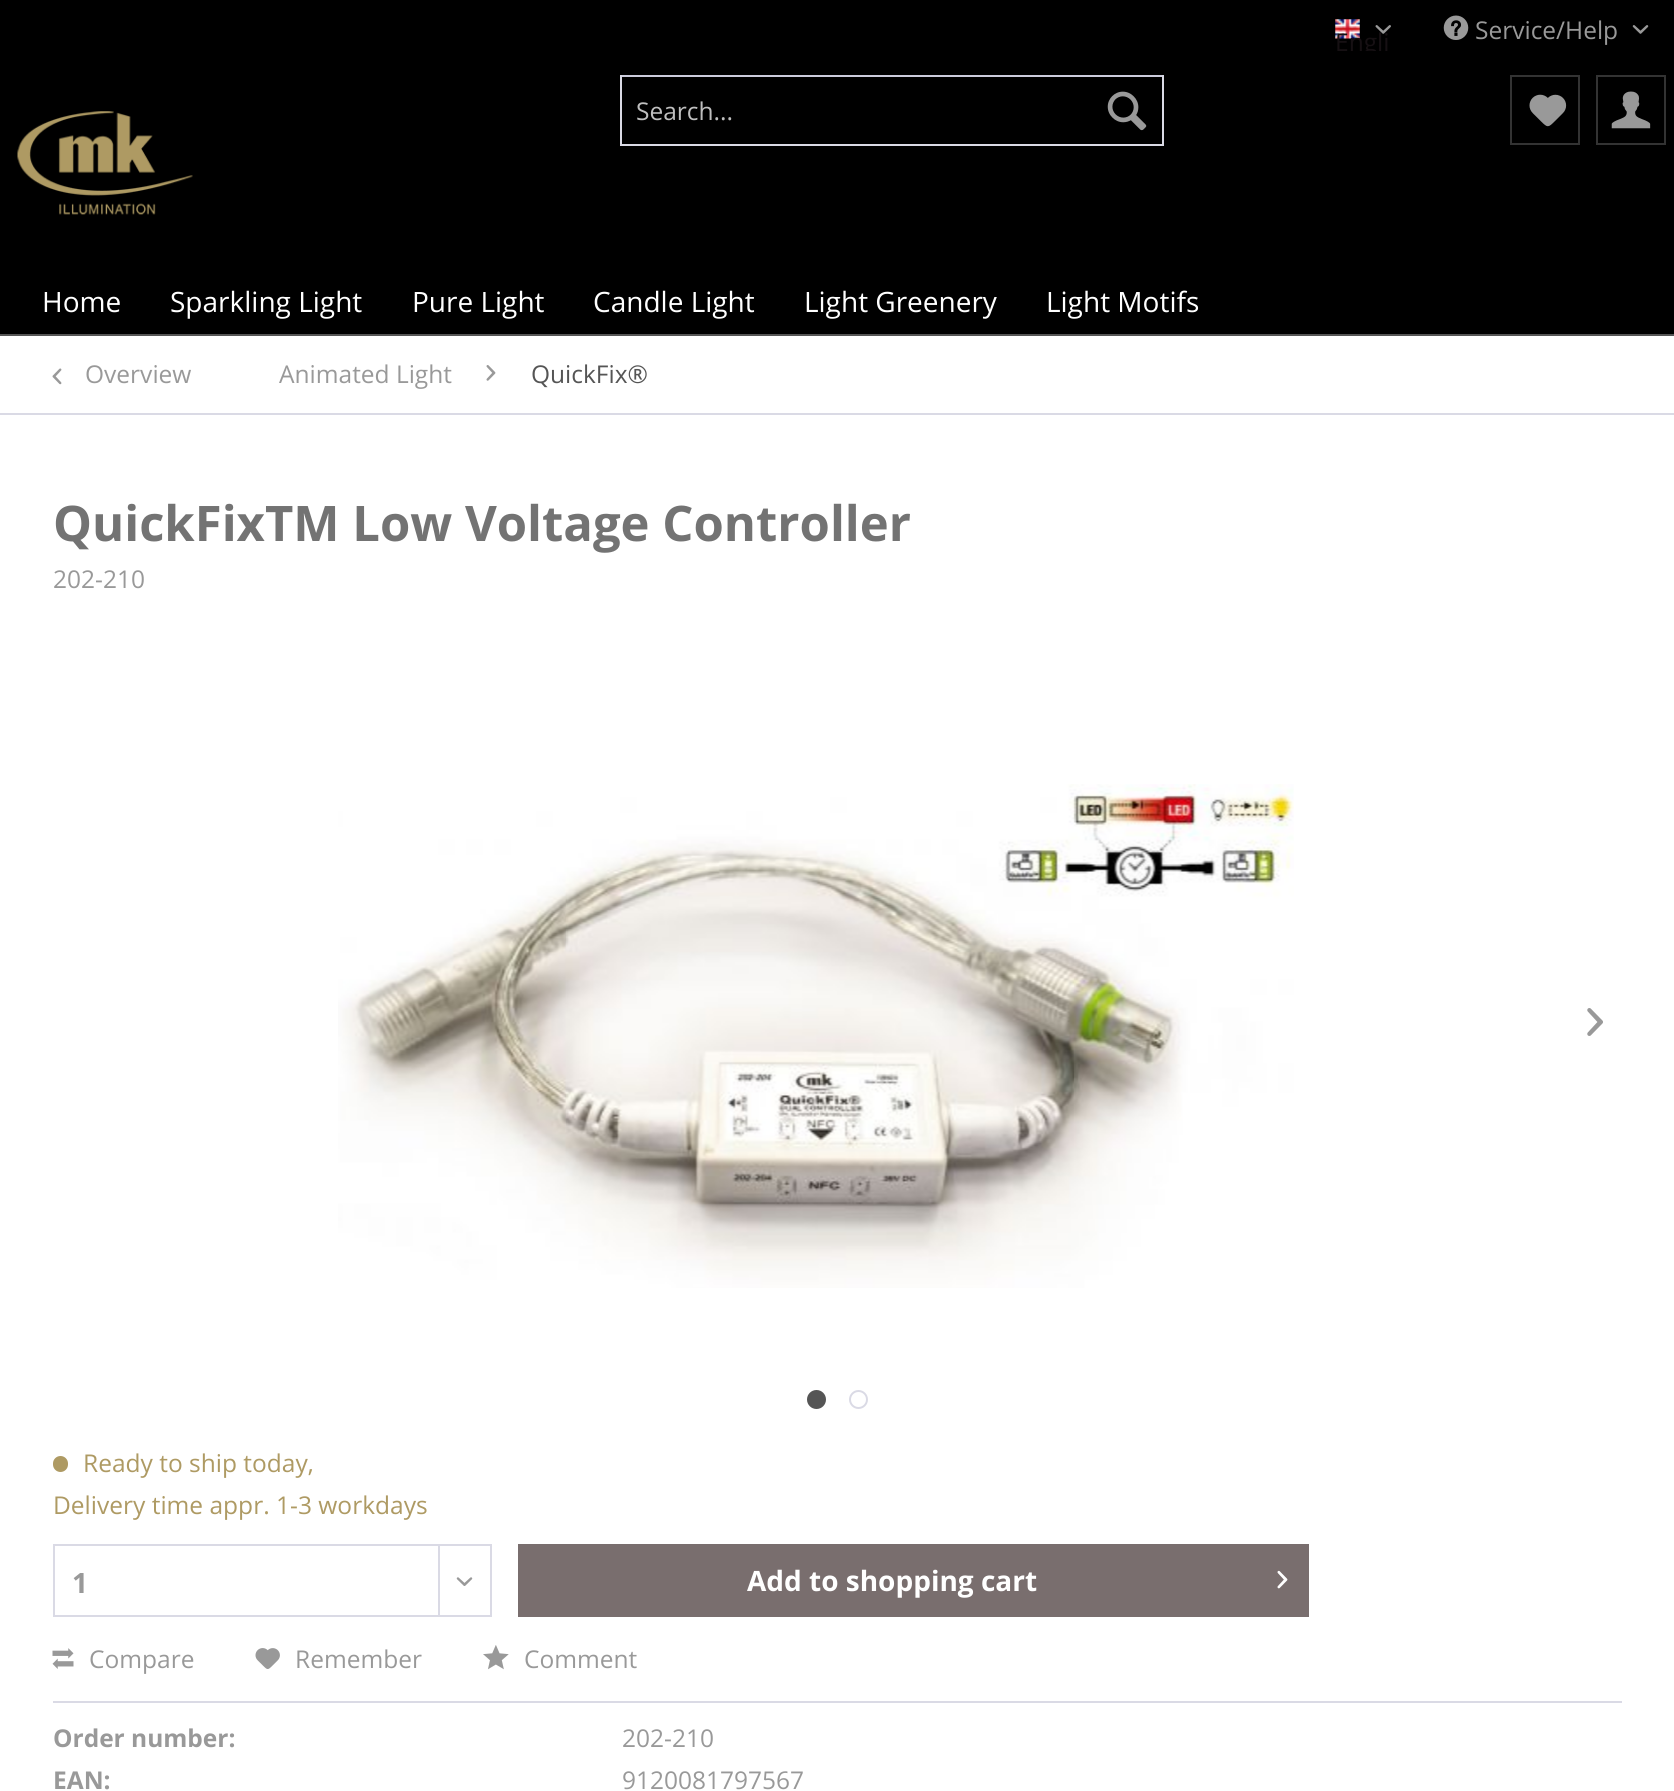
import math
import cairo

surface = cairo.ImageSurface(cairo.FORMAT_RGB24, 1674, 1791)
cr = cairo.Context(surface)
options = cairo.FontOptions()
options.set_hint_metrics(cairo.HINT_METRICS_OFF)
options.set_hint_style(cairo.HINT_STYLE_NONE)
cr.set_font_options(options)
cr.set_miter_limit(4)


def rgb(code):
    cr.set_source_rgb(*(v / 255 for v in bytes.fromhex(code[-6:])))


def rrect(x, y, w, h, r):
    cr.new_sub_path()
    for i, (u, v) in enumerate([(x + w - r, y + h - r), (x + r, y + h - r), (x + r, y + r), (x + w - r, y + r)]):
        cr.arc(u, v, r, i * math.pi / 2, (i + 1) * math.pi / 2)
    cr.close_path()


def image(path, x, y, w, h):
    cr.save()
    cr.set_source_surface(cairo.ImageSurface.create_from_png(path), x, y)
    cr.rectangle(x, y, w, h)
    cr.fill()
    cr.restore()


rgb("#000000")
cr.paint()
image("img/1.png", 1335, 19, 25, 20)
image("img/2.png", 1375, 25, 16, 9)
image("img/3.png", 1443, 15, 26, 25)
image("img/4.png", 1632, 25, 17, 9)
image("img/5.png", 17, 111, 176, 104)
for x, y, w, h, color in [
    (620, 75, 544, 2, "#cbcbdb"),
    (1162, 75, 2, 70, "#dadae5"),
    (620, 144, 544, 2, "#dadae5"),
    (620, 75, 2, 70, "#dadae5"),
]:
    rgb(color)
    cr.rectangle(x, y, w, h)
    cr.fill()
image("img/6.png", 1107, 91, 40, 40)
cr.rectangle(1511, 76, 68, 68)
rgb("#333333")
cr.stroke()
image("img/7.png", 1529, 94, 38, 33)
cr.rectangle(1597, 76, 68, 68)
cr.stroke()
image("img/8.png", 1611, 91, 40, 38)
for x, y, w, h, color in [
    (0, 334, 1674, 2, "#555555"),
    (0, 336, 1674, 1455, "#ffffff"),
    (0, 413, 1674, 2, "#dadae5"),
]:
    rgb(color)
    cr.rectangle(x, y, w, h)
    cr.fill()
image("img/9.png", 52, 368, 10, 17)
image("img/10.png", 486, 365, 10, 16)
image("img/11.png", 338, 784, 956, 504)
image("img/12.png", 1587, 1008, 16, 28)
rgb("#555555")
cr.arc(816.5, 1399.5, 8.5, 0, 2 * math.pi)
cr.fill_preserve()
cr.stroke()
cr.arc(858.5, 1399.5, 8.5, 0, 2 * math.pi)
rgb("#dadae5")
cr.stroke()
rgb("#ae9a63")
rrect(53, 1456, 15, 16, 7.5)
cr.fill()
cr.rectangle(54, 1545, 437, 71)
rgb("#dadae5")
cr.stroke()
cr.rectangle(438, 1545, 2, 70)
cr.fill()
image("img/13.png", 456, 1577, 17, 9)
rgb("#796e6e")
cr.rectangle(518, 1544, 791, 73)
cr.fill()
image("img/14.png", 1277, 1570, 11, 19)
rgb("#dadae5")
cr.rectangle(53, 1701, 1569, 2)
cr.fill()
image("img/15.png", 52, 1648, 22, 21)
image("img/16.png", 255, 1648, 25, 21)
image("img/17.png", 483, 1645, 26, 25)
cr.save()
cr.rectangle(1335, 7, 56, 44)
cr.clip()
cr.select_font_face("Open Sans")
cr.set_font_size(24.5)
rgb("#161013")
cr.move_to(1335, 51)
cr.show_text("Engli")
cr.restore()
cr.select_font_face("Open Sans")
cr.set_font_size(24.5)
rgb("#999999")
cr.move_to(1475, 39)
cr.show_text("Service/Help")
rgb("#bfbfbf")
cr.move_to(636, 120)
cr.show_text("Search...")
cr.set_font_size(28)
rgb("#ffffff")
for x, y, s in [
    (42, 312, "Home"),
    (170, 312, "Sparkling Light"),
    (412, 312, "Pure Light"),
    (593, 312, "Candle Light"),
    (804, 312, "Light Greenery"),
    (1046, 312, "Light Motifs"),
]:
    cr.move_to(x, y)
    cr.show_text(s)
cr.set_font_size(24.5)
rgb("#999999")
cr.move_to(85, 383)
cr.show_text("Overview")
cr.move_to(279, 383)
cr.show_text("Animated Light")
rgb("#555555")
cr.move_to(531, 383)
cr.show_text("QuickFix®")
cr.select_font_face("Open Sans", cairo.FONT_SLANT_NORMAL, cairo.FONT_WEIGHT_BOLD)
cr.set_font_size(49)
rgb("#737373")
cr.move_to(53, 541)
cr.show_text("QuickFixTM Low Voltage Controller")
cr.select_font_face("Open Sans")
cr.set_font_size(24.5)
rgb("#999999")
cr.move_to(53, 588)
cr.show_text("202-210")
rgb("#ae9a63")
cr.move_to(83, 1472)
cr.show_text("Ready to ship today,")
cr.move_to(53, 1514)
cr.show_text("Delivery time appr. 1-3 workdays")
cr.select_font_face("Open Sans", cairo.FONT_SLANT_NORMAL, cairo.FONT_WEIGHT_BOLD)
cr.set_font_size(28)
rgb("#999999")
cr.move_to(72, 1593)
cr.show_text("1")
rgb("#ffffff")
cr.move_to(747, 1591)
cr.show_text("Add to shopping cart")
cr.select_font_face("Open Sans")
cr.set_font_size(24.5)
rgb("#999999")
for x, y, s in [
    (89, 1668, "Compare"),
    (295, 1668, "Remember"),
    (524, 1668, "Comment"),
]:
    cr.move_to(x, y)
    cr.show_text(s)
cr.select_font_face("Open Sans", cairo.FONT_SLANT_NORMAL, cairo.FONT_WEIGHT_BOLD)
cr.move_to(53, 1747)
cr.show_text("Order number:")
cr.select_font_face("Open Sans")
cr.move_to(622, 1747)
cr.show_text("202-210")
cr.select_font_face("Open Sans", cairo.FONT_SLANT_NORMAL, cairo.FONT_WEIGHT_BOLD)
cr.move_to(53, 1789)
cr.show_text("EAN:")
cr.select_font_face("Open Sans")
cr.move_to(622, 1789)
cr.show_text("9120081797567")
surface.write_to_png("page.png")
